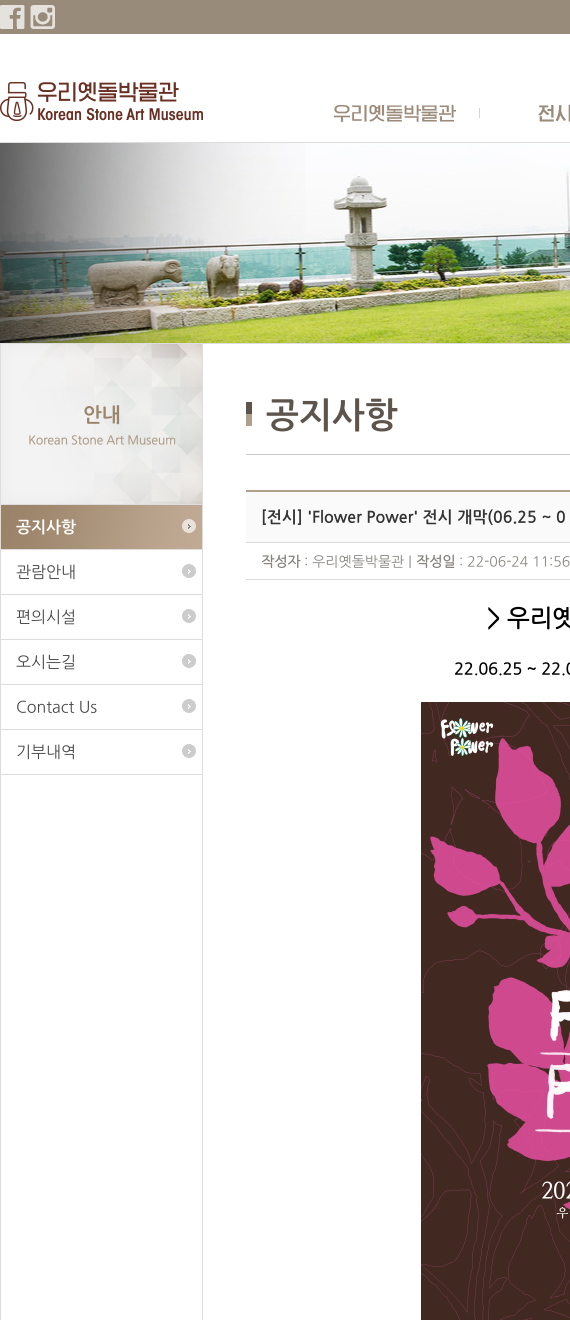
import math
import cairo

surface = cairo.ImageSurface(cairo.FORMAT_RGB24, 570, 1320)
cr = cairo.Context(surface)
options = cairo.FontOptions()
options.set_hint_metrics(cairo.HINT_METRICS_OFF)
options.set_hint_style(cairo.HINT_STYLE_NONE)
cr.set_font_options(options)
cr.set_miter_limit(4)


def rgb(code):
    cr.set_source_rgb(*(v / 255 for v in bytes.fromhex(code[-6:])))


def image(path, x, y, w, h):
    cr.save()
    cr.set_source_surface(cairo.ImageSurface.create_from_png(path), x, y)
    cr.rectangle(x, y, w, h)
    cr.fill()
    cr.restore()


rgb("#ffffff")
cr.paint()
image("img/1.png", 0, 0, 570, 142)
image("img/2.png", 0, 5, 25, 24)
image("img/3.png", 30, 5, 25, 24)
image("img/4.png", 0, 82, 203, 39)
image("img/5.png", 333, 104, 124, 18)
rgb("#dfd3d1")
cr.rectangle(479, 108, 1, 10)
cr.fill()
image("img/6.png", 538, 104, 32, 18)
image("img/7.png", 0, 143, 570, 200)
rgb("#dddddd")
cr.rectangle(0, 142, 570, 1)
cr.fill()
image("img/8.png", 0, 143, 305, 200)
cr.rectangle(202, 343, 1, 977)
cr.fill()
cr.rectangle(0.5, 343.5, 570, 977)
cr.set_line_width(1)
cr.stroke()
image("img/9.png", 1, 344, 201, 160)
cr.rectangle(1, 504, 201, 1)
cr.fill()
image("img/10.png", 1, 505, 201, 44)
cr.rectangle(1, 549, 201, 1)
cr.fill()
image("img/11.png", 182, 564, 14, 14)
cr.rectangle(1, 594, 201, 1)
cr.fill()
image("img/11.png", 182, 609, 14, 14)
cr.rectangle(1, 639, 201, 1)
cr.fill()
image("img/11.png", 182, 654, 14, 14)
cr.rectangle(1, 684, 201, 1)
cr.fill()
image("img/11.png", 182, 699, 14, 14)
cr.rectangle(1, 729, 201, 1)
cr.fill()
image("img/11.png", 182, 744, 14, 14)
cr.rectangle(1, 774, 201, 1)
cr.fill()
rgb("#c9c9c9")
cr.rectangle(246, 454, 324, 1)
cr.fill()
image("img/12.png", 246, 402, 6, 24)
for x, y, w, h, color in [
    (246, 492, 324, 50, "#fafafa"),
    (246, 490, 324, 2, "#aea08f"),
    (246, 542, 324, 1, "#dddddd"),
    (246, 579, 324, 1, "#dddddd"),
]:
    rgb(color)
    cr.rectangle(x, y, w, h)
    cr.fill()
image("img/13.png", 421, 702, 149, 618)
cr.select_font_face("NanumGothic", cairo.FONT_SLANT_NORMAL, cairo.FONT_WEIGHT_BOLD)
cr.set_font_size(20)
rgb("#9b8469")
cr.move_to(83, 421)
cr.show_text("안내")
cr.select_font_face("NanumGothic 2", cairo.FONT_SLANT_NORMAL, cairo.FONT_WEIGHT_BOLD)
cr.set_font_size(12)
rgb("#b1a08c")
cr.move_to(28, 444)
cr.show_text("Korean Stone Art Museum")
cr.select_font_face("NanumGothic", cairo.FONT_SLANT_NORMAL, cairo.FONT_WEIGHT_BOLD)
cr.set_font_size(16)
rgb("#ffffff")
cr.move_to(16, 532)
cr.show_text("공지사항")
cr.select_font_face("NanumGothic")
rgb("#484848")
for x, y, s in [
    (16, 577, "관람안내"),
    (16, 622, "편의시설"),
    (16, 667, "오시는길"),
    (16, 712, "Contact Us"),
    (16, 757, "기부내역"),
]:
    cr.move_to(x, y)
    cr.show_text(s)
cr.select_font_face("NanumGothic", cairo.FONT_SLANT_NORMAL, cairo.FONT_WEIGHT_BOLD)
cr.set_font_size(35)
rgb("#5d544b")
cr.move_to(266, 426)
cr.show_text("공지사항")
cr.set_font_size(16)
rgb("#333333")
cr.move_to(261, 522)
cr.show_text("[전시] 'Flower Power' 전시 개막(06.25 ~ 0")
cr.select_font_face("NanumGothic 2", cairo.FONT_SLANT_NORMAL, cairo.FONT_WEIGHT_BOLD)
cr.set_font_size(14)
rgb("#87837f")
cr.move_to(261, 566)
cr.show_text("작성자")
cr.select_font_face("NanumGothic")
cr.move_to(304, 566)
cr.show_text(": 우리옛돌박물관 |")
cr.select_font_face("NanumGothic 2", cairo.FONT_SLANT_NORMAL, cairo.FONT_WEIGHT_BOLD)
cr.move_to(416, 566)
cr.show_text("작성일")
cr.select_font_face("NanumGothic")
cr.move_to(459, 566)
cr.show_text(": 22-06-24 11:56")
cr.select_font_face("NanumGothic 2", cairo.FONT_SLANT_NORMAL, cairo.FONT_WEIGHT_BOLD)
cr.set_font_size(24)
rgb("#000000")
cr.move_to(487, 626)
cr.show_text("> 우리옛")
cr.set_font_size(16)
cr.move_to(454, 674)
cr.show_text("22.06.25 ~ 22.0")
surface.write_to_png("page.png")
